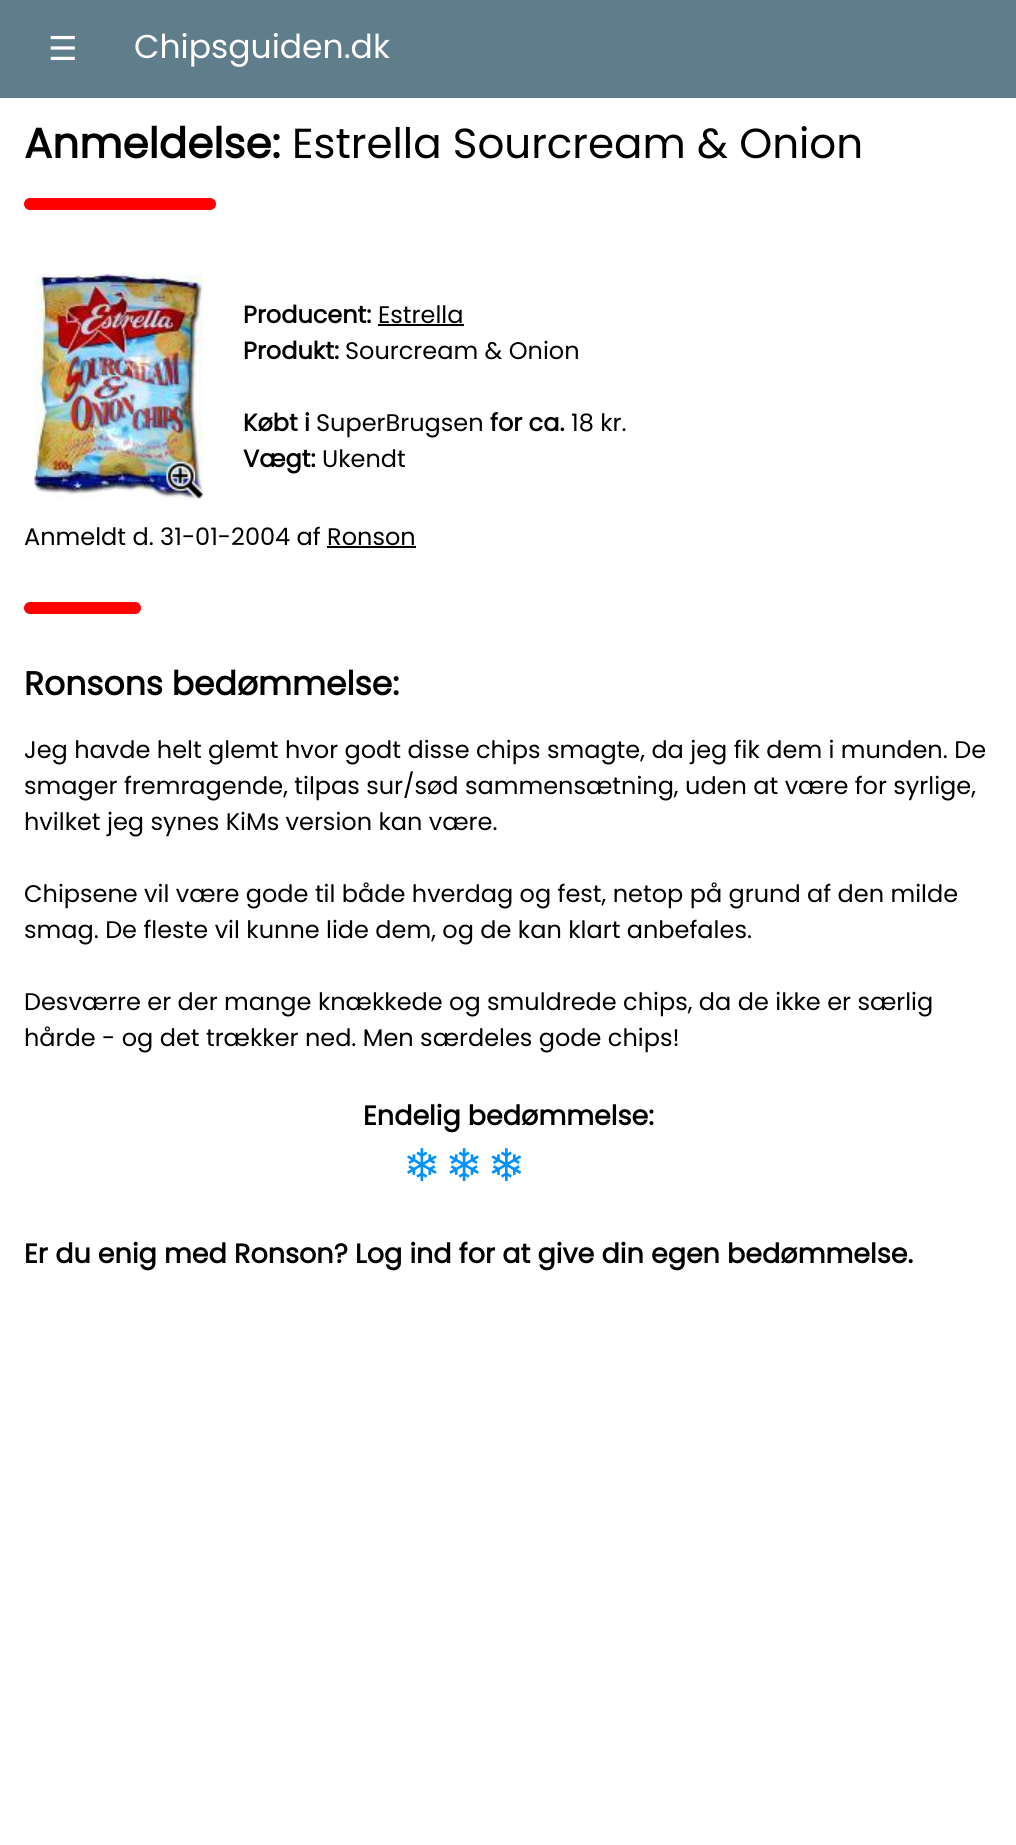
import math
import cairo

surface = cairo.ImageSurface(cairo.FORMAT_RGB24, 1016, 1845)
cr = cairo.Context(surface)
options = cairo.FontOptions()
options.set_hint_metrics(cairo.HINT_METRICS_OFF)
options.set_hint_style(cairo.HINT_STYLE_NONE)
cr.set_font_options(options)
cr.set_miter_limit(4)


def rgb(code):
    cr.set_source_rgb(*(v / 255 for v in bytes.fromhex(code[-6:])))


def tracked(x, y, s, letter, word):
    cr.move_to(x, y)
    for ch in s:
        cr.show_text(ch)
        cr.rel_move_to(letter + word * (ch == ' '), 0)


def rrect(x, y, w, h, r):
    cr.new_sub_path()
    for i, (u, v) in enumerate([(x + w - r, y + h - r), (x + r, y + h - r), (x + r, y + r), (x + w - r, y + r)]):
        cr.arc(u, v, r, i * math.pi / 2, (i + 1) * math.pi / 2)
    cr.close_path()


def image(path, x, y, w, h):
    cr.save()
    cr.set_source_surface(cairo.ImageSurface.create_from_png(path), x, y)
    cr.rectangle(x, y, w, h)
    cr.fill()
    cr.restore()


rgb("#ffffff")
cr.paint()
rgb("#607d8b")
cr.rectangle(0, 0, 1016, 98)
cr.fill()
rgb("#ff0000")
rrect(24, 198, 192, 12, 6)
cr.fill()
image("img/1.png", 34, 274, 170, 226)
rgb("#000000")
cr.rectangle(378, 324, 86, 2)
cr.fill()
cr.rectangle(327, 546, 89, 2)
cr.fill()
rgb("#ff0000")
rrect(24, 602, 117, 12, 6)
cr.fill()
cr.select_font_face("DejaVu Sans")
cr.set_font_size(33)
rgb("#ffffff")
cr.move_to(48, 60)
cr.show_text("☰")
cr.select_font_face("Poppins")
cr.move_to(134, 58)
cr.show_text("Chipsguiden.dk")
cr.select_font_face("Poppins", cairo.FONT_SLANT_NORMAL, cairo.FONT_WEIGHT_BOLD)
cr.set_font_size(42)
rgb("#000000")
cr.move_to(24, 158)
cr.show_text("Anmeldelse:")
cr.select_font_face("Poppins")
cr.move_to(292, 158)
cr.show_text("Estrella Sourcream & Onion")
cr.select_font_face("Poppins", cairo.FONT_SLANT_NORMAL, cairo.FONT_WEIGHT_BOLD)
cr.set_font_size(24)
cr.move_to(243, 323)
cr.show_text("Producent:")
cr.select_font_face("Poppins")
cr.move_to(378, 323)
cr.show_text("Estrella")
cr.select_font_face("Poppins", cairo.FONT_SLANT_NORMAL, cairo.FONT_WEIGHT_BOLD)
cr.move_to(243, 359)
cr.show_text("Produkt:")
cr.select_font_face("Poppins")
cr.move_to(345, 359)
cr.show_text("Sourcream & Onion")
cr.select_font_face("Poppins", cairo.FONT_SLANT_NORMAL, cairo.FONT_WEIGHT_BOLD)
cr.move_to(243, 431)
cr.show_text("Købt i")
cr.select_font_face("Poppins")
cr.move_to(316, 431)
cr.show_text("SuperBrugsen")
cr.select_font_face("Poppins", cairo.FONT_SLANT_NORMAL, cairo.FONT_WEIGHT_BOLD)
cr.move_to(490, 431)
cr.show_text("for ca.")
cr.select_font_face("Poppins")
cr.move_to(571, 431)
cr.show_text("18 kr.")
cr.select_font_face("Poppins", cairo.FONT_SLANT_NORMAL, cairo.FONT_WEIGHT_BOLD)
cr.move_to(243, 467)
cr.show_text("Vægt:")
cr.select_font_face("Poppins")
cr.move_to(322, 467)
cr.show_text("Ukendt")
cr.move_to(24, 545)
cr.show_text("Anmeldt d. 31-01-2004 af Ronson")
cr.select_font_face("Poppins", cairo.FONT_SLANT_NORMAL, cairo.FONT_WEIGHT_BOLD)
cr.set_font_size(33)
cr.move_to(24, 695)
cr.show_text("Ronsons bedømmelse:")
cr.select_font_face("Poppins")
cr.set_font_size(24)
for x, y, s in [
    (24, 758, "Jeg havde helt glemt hvor godt disse chips smagte, da jeg fik dem i munden. De"),
    (24, 794, "smager fremragende, tilpas sur/sød sammensætning, uden at være for syrlige,"),
    (24, 830, "hvilket jeg synes KiMs version kan være."),
    (24, 902, "Chipsene vil være gode til både hverdag og fest, netop på grund af den milde"),
    (24, 938, "smag. De fleste vil kunne lide dem, og de kan klart anbefales."),
    (24, 1010, "Desværre er der mange knækkede og smuldrede chips, da de ikke er særlig"),
    (24, 1046, "hårde - og det trækker ned. Men særdeles gode chips!"),
]:
    cr.move_to(x, y)
    cr.show_text(s)
cr.select_font_face("Poppins", cairo.FONT_SLANT_NORMAL, cairo.FONT_WEIGHT_BOLD)
cr.set_font_size(27)
cr.move_to(363, 1125)
cr.show_text("Endelig bedømmelse:")
cr.select_font_face("DejaVu Sans")
cr.set_font_size(45)
gradient = cairo.LinearGradient(403, 1166, 614, 1166)
gradient.add_color_stop_rgba(0.6, 0, 0.569, 1, 1)
gradient.add_color_stop_rgba(0.6, 1, 1, 1, 1)
cr.set_source(gradient)
tracked(403, 1181, "❄❄❄", 4.5, 0)
cr.select_font_face("Poppins", cairo.FONT_SLANT_NORMAL, cairo.FONT_WEIGHT_BOLD)
cr.set_font_size(27)
rgb("#000000")
cr.move_to(24, 1263)
cr.show_text("Er du enig med Ronson? Log ind for at give din egen bedømmelse.")
surface.write_to_png("page.png")
